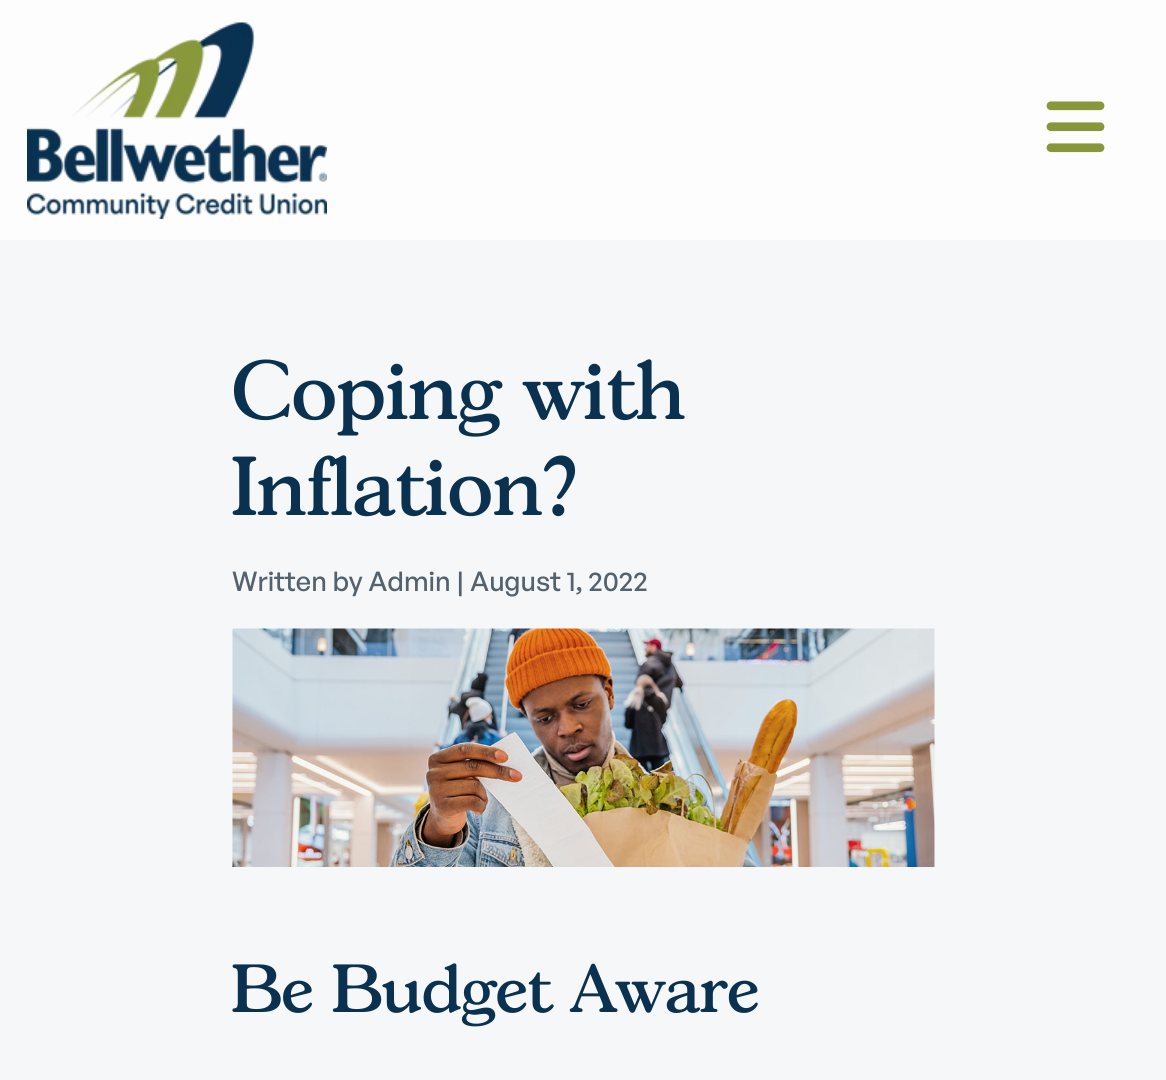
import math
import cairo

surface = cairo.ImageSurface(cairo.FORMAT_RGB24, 1166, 1080)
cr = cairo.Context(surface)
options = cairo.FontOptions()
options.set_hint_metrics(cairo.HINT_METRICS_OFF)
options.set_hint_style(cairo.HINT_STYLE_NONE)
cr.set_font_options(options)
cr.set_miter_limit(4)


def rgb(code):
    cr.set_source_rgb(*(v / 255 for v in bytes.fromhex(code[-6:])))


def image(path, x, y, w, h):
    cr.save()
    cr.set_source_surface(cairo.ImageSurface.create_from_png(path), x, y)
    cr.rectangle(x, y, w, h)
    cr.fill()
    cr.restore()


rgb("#f6f7f9")
cr.paint()
rgb("#fdfdfd")
cr.rectangle(0, 0, 1166, 240)
cr.fill()
image("img/1.png", 27, 22, 300, 197)
image("img/2.png", 1046, 101, 59, 52)
image("img/3.png", 232, 628, 703, 239)
cr.select_font_face("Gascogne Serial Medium")
cr.set_font_size(81)
rgb("#0a3250")
cr.move_to(232, 419)
cr.show_text("Coping with")
cr.move_to(232, 515)
cr.show_text("Inflation?")
cr.select_font_face("General Sans Medium")
cr.set_font_size(27)
rgb("#54626e")
cr.move_to(232, 591)
cr.show_text("Written by Admin | August 1, 2022")
cr.select_font_face("Gascogne Serial Medium")
cr.set_font_size(66)
rgb("#0a3250")
cr.move_to(232, 1012)
cr.show_text("Be Budget Aware")
surface.write_to_png("page.png")
